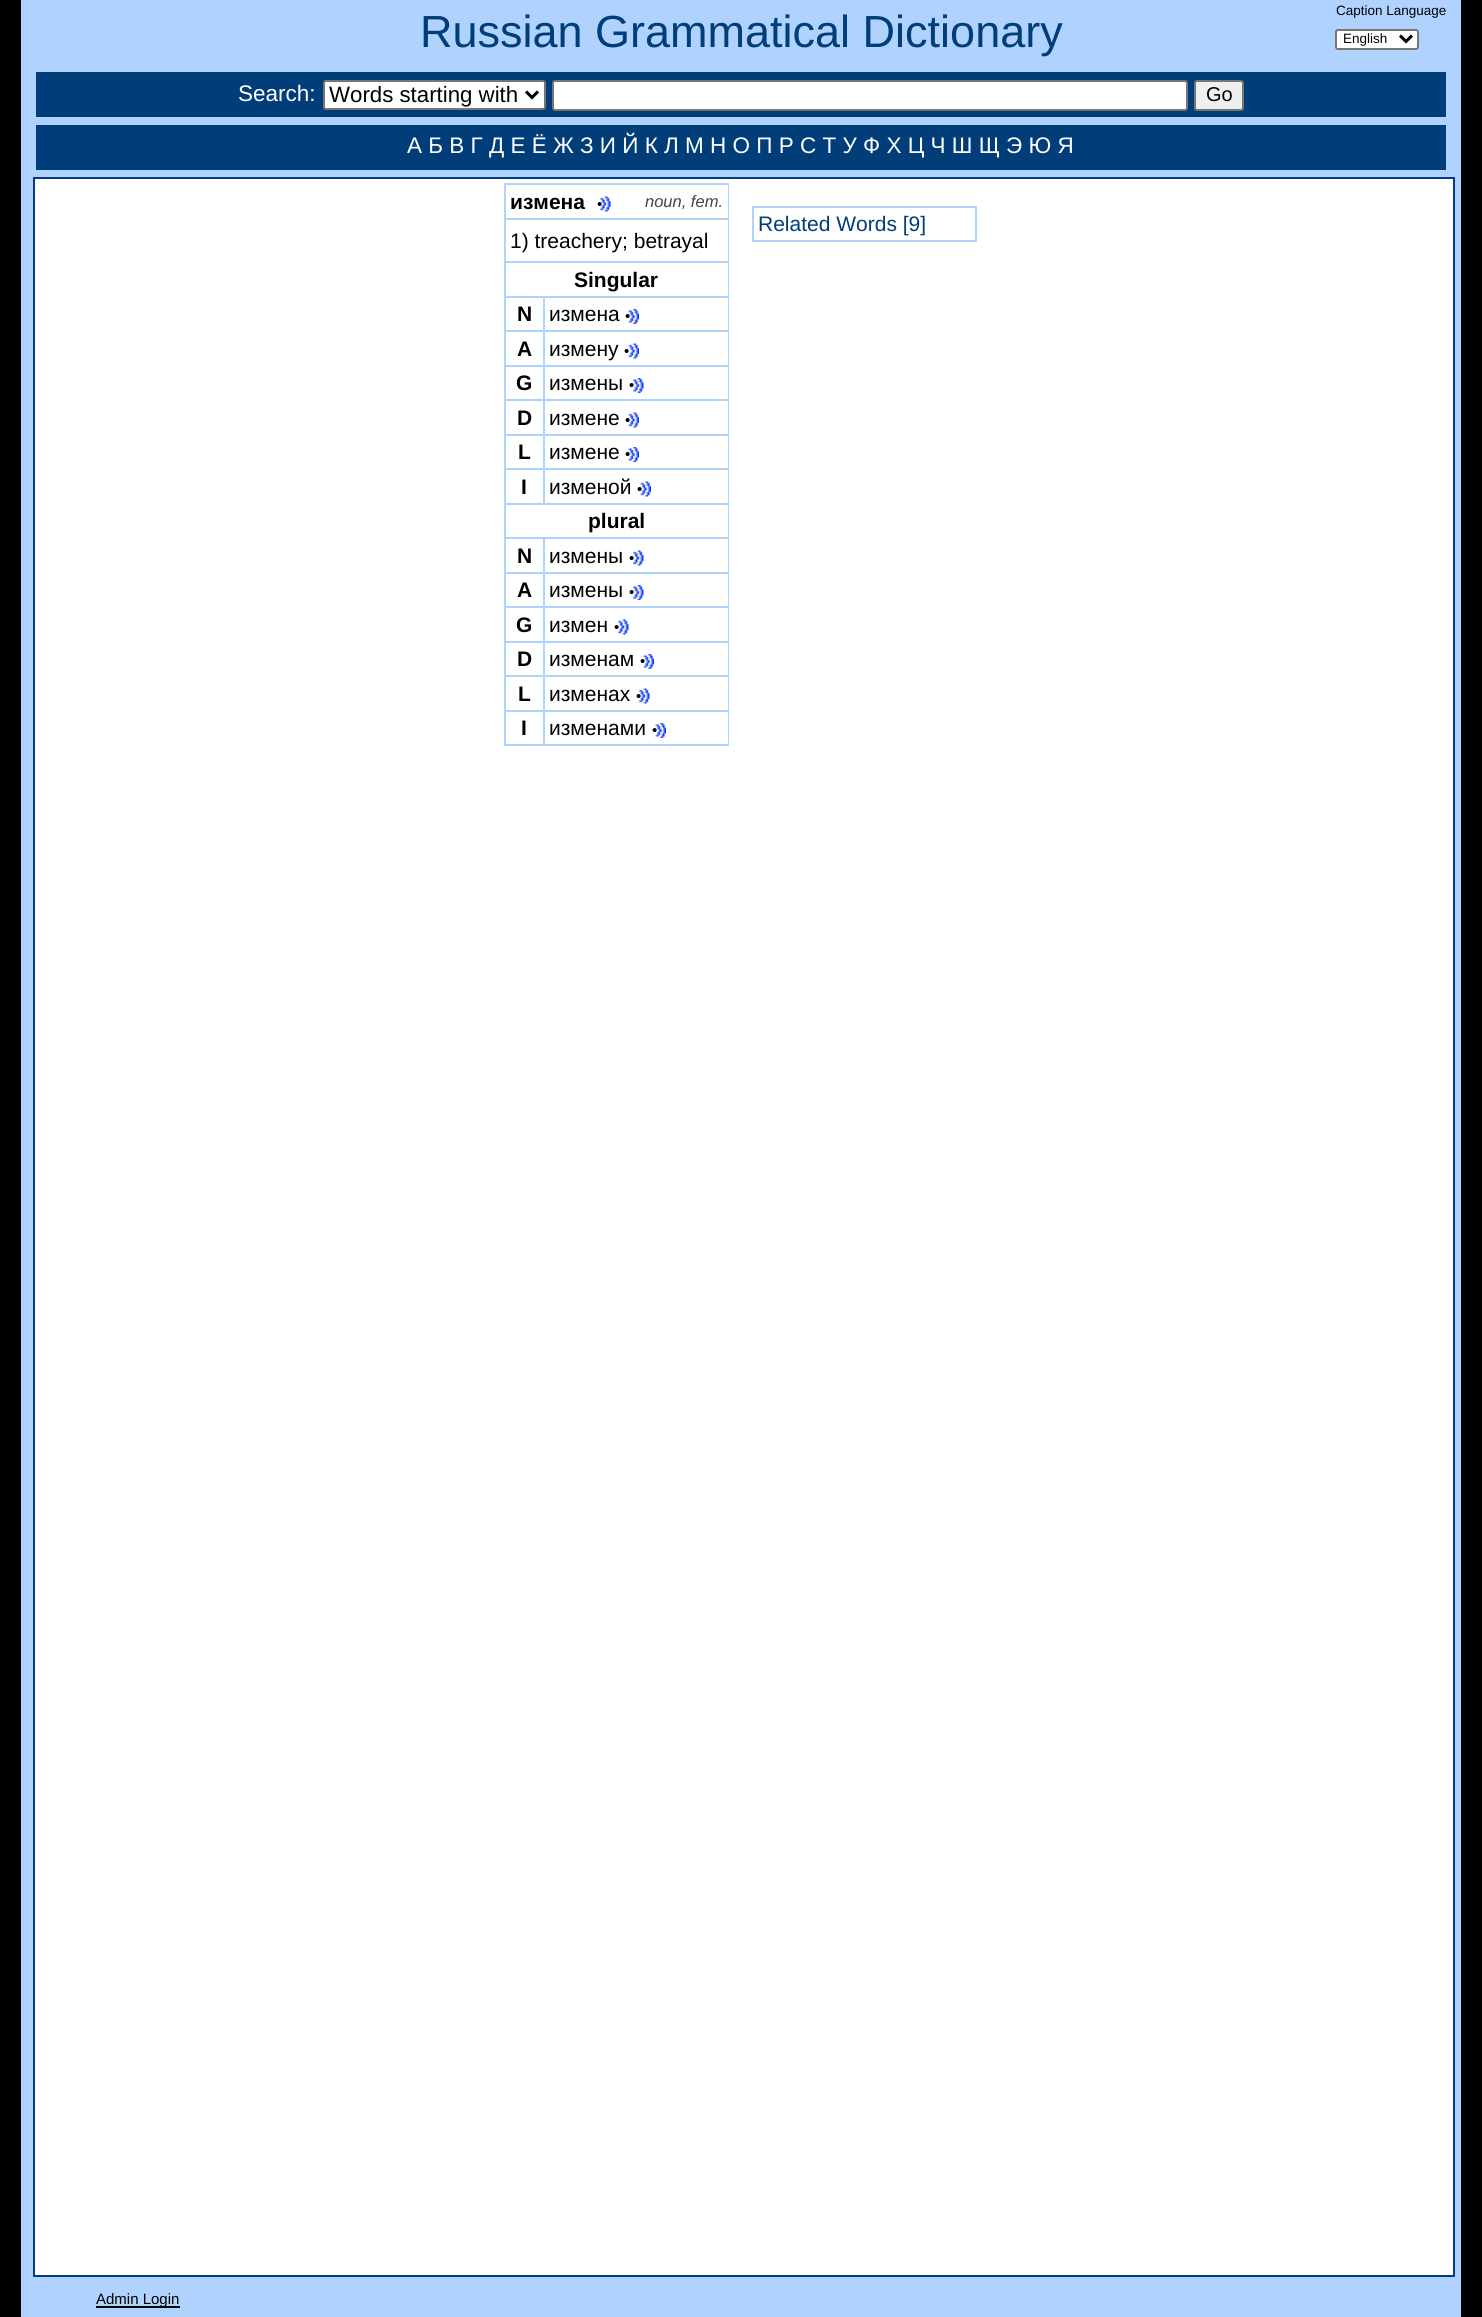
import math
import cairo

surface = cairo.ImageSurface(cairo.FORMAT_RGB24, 1482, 2317)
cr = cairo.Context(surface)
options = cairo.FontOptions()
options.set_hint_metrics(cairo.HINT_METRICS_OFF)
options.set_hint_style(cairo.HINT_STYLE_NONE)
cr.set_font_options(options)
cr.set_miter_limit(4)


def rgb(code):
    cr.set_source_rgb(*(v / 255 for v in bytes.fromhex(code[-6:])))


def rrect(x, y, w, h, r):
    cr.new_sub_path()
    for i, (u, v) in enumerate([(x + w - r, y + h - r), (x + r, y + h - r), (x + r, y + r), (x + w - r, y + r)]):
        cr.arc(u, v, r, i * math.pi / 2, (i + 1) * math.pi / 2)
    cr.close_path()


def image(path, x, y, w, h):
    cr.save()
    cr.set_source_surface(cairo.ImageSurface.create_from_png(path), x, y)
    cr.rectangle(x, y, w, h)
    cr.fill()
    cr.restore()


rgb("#000000")
cr.paint()
rgb("#afd2ff")
cr.rectangle(21, 0, 1440, 2317)
cr.fill()
rgb("#ffffff")
rrect(1336, 30, 82, 19, 2)
cr.fill_preserve()
rgb("#767676")
cr.stroke()
cr.new_path()
cr.move_to(1400, 35.5)
cr.line_to(1406, 41.5)
cr.line_to(1412, 35.5)
rgb("#000000")
cr.set_line_width(3)
cr.stroke()
rgb("#003d79")
cr.rectangle(36, 72, 1410, 45)
cr.fill()
rgb("#ffffff")
rrect(324, 81, 221, 28, 2)
cr.fill_preserve()
rgb("#767676")
cr.set_line_width(2)
cr.stroke()
cr.new_path()
cr.move_to(526, 91.5)
cr.line_to(532, 97.5)
cr.line_to(538, 91.5)
rgb("#000000")
cr.set_line_width(3)
cr.stroke()
rgb("#ffffff")
rrect(553, 81, 634, 29, 2)
cr.fill_preserve()
rgb("#767676")
cr.set_line_width(2)
cr.stroke()
rgb("#efefef")
rrect(1195, 81, 48, 29, 2)
cr.fill_preserve()
rgb("#767676")
cr.stroke()
rgb("#003d79")
cr.rectangle(36, 125, 1410, 45)
cr.fill()
rgb("#ffffff")
cr.rectangle(34, 178, 1420, 2098)
cr.fill_preserve()
rgb("#003d79")
cr.stroke()
for x, y, w, h, color in [
    (504, 183, 225, 2, "#afd2ff"),
    (728, 183, 1, 563, "#afd2ff"),
    (504, 744, 225, 2, "#afd2ff"),
    (504, 183, 2, 563, "#afd2ff"),
    (504, 218, 225, 2, "#afd2ff"),
    (504, 261, 225, 2, "#afd2ff"),
    (543, 296, 186, 2, "#afd2ff"),
    (543, 330, 186, 2, "#afd2ff"),
    (543, 365, 186, 2, "#afd2ff"),
    (543, 399, 186, 2, "#afd2ff"),
    (543, 434, 186, 2, "#afd2ff"),
    (543, 468, 186, 2, "#afd2ff"),
    (504, 503, 225, 2, "#afd2ff"),
    (543, 468, 2, 36, "#afd2ff"),
    (504, 468, 41, 2, "#afd2ff"),
    (543, 434, 2, 36, "#afd2ff"),
    (504, 434, 41, 2, "#afd2ff"),
    (543, 399, 2, 36, "#afd2ff"),
    (504, 399, 41, 2, "#afd2ff"),
    (543, 365, 2, 36, "#afd2ff"),
    (504, 365, 41, 2, "#afd2ff"),
    (543, 330, 2, 36, "#afd2ff"),
    (504, 330, 41, 2, "#afd2ff"),
    (543, 296, 2, 36, "#afd2ff"),
    (504, 296, 41, 2, "#afd2ff"),
    (543, 537, 186, 2, "#afd2ff"),
    (543, 572, 186, 2, "#afd2ff"),
    (543, 606, 186, 2, "#afd2ff"),
    (543, 641, 186, 2, "#afd2ff"),
    (543, 675, 186, 2, "#afd2ff"),
    (543, 710, 186, 2, "#afd2ff"),
    (543, 710, 2, 36, "#afd2ff"),
    (504, 710, 41, 2, "#afd2ff"),
    (543, 675, 2, 36, "#afd2ff"),
    (504, 675, 41, 2, "#afd2ff"),
    (543, 641, 2, 36, "#afd2ff"),
    (504, 641, 41, 2, "#afd2ff"),
    (543, 606, 2, 36, "#afd2ff"),
    (504, 606, 41, 2, "#afd2ff"),
    (543, 572, 2, 36, "#afd2ff"),
    (504, 572, 41, 2, "#afd2ff"),
    (543, 537, 2, 36, "#afd2ff"),
    (504, 537, 41, 2, "#afd2ff"),
    (752, 206, 225, 2, "#afd2ff"),
    (975, 206, 2, 36, "#afd2ff"),
    (752, 240, 225, 2, "#afd2ff"),
    (752, 206, 2, 36, "#afd2ff"),
    (96, 2306, 84, 2, "#000000"),
]:
    rgb(color)
    cr.rectangle(x, y, w, h)
    cr.fill()
cr.select_font_face("Liberation Sans")
cr.set_font_size(45)
rgb("#003d79")
cr.move_to(420, 47)
cr.show_text("Russian Grammatical Dictionary")
cr.set_font_size(13.5)
rgb("#000000")
cr.move_to(1336, 15)
cr.show_text("Caption Language")
cr.move_to(1343, 43)
cr.show_text("English")
cr.set_font_size(22.5)
rgb("#ffffff")
cr.move_to(238, 101)
cr.show_text("Search:")
cr.set_font_size(22.25)
rgb("#000000")
cr.move_to(329, 102)
cr.show_text("Words starting with")
cr.set_font_size(20)
cr.move_to(1206, 101)
cr.show_text("Go")
cr.set_font_size(22.5)
rgb("#ffffff")
cr.move_to(407, 153)
cr.show_text("А Б В Г Д Е Ё Ж З И Й К Л М Н О П Р С Т У Ф Х Ц Ч Ш Щ Э Ю Я")
cr.select_font_face("Liberation Sans", cairo.FONT_SLANT_NORMAL, cairo.FONT_WEIGHT_BOLD)
cr.set_font_size(21)
rgb("#000000")
cr.move_to(510, 209)
cr.show_text("измена")
cr.select_font_face("Liberation Sans")
cr.set_font_size(15)
cr.move_to(597, 209)
cr.show_text("•")
image("img/1.png", 600, 196, 11, 16)
cr.select_font_face("Liberation Sans", cairo.FONT_SLANT_ITALIC)
cr.set_font_size(16.5)
rgb("#444444")
cr.move_to(645, 207)
cr.show_text("noun, fem.")
cr.select_font_face("Liberation Sans")
cr.set_font_size(21)
rgb("#000000")
cr.move_to(510, 248)
cr.show_text("1) treachery; betrayal")
cr.select_font_face("Liberation Sans", cairo.FONT_SLANT_NORMAL, cairo.FONT_WEIGHT_BOLD)
cr.move_to(574, 287)
cr.show_text("Singular")
cr.move_to(517, 321)
cr.show_text("N")
cr.select_font_face("Liberation Sans")
cr.move_to(549, 321)
cr.show_text("измена")
cr.set_font_size(15)
cr.move_to(625, 321)
cr.show_text("•")
image("img/2.png", 628, 309, 11, 15)
cr.select_font_face("Liberation Sans", cairo.FONT_SLANT_NORMAL, cairo.FONT_WEIGHT_BOLD)
cr.set_font_size(21)
cr.move_to(517, 356)
cr.show_text("A")
cr.select_font_face("Liberation Sans")
cr.move_to(549, 356)
cr.show_text("измену")
cr.set_font_size(15)
cr.move_to(624, 356)
cr.show_text("•")
image("img/3.png", 628, 343, 11, 16)
cr.select_font_face("Liberation Sans", cairo.FONT_SLANT_NORMAL, cairo.FONT_WEIGHT_BOLD)
cr.set_font_size(21)
cr.move_to(516, 390)
cr.show_text("G")
cr.select_font_face("Liberation Sans")
cr.move_to(549, 390)
cr.show_text("измены")
cr.set_font_size(15)
cr.move_to(629, 390)
cr.show_text("•")
image("img/4.png", 633, 378, 11, 15)
cr.select_font_face("Liberation Sans", cairo.FONT_SLANT_NORMAL, cairo.FONT_WEIGHT_BOLD)
cr.set_font_size(21)
cr.move_to(517, 425)
cr.show_text("D")
cr.select_font_face("Liberation Sans")
cr.move_to(549, 425)
cr.show_text("измене")
cr.set_font_size(15)
cr.move_to(625, 425)
cr.show_text("•")
image("img/5.png", 628, 412, 11, 16)
cr.select_font_face("Liberation Sans", cairo.FONT_SLANT_NORMAL, cairo.FONT_WEIGHT_BOLD)
cr.set_font_size(21)
cr.move_to(518, 459)
cr.show_text("L")
cr.select_font_face("Liberation Sans")
cr.move_to(549, 459)
cr.show_text("измене")
cr.set_font_size(15)
cr.move_to(625, 459)
cr.show_text("•")
image("img/2.png", 628, 447, 11, 15)
cr.select_font_face("Liberation Sans", cairo.FONT_SLANT_NORMAL, cairo.FONT_WEIGHT_BOLD)
cr.set_font_size(21)
cr.move_to(521, 494)
cr.show_text("I")
cr.select_font_face("Liberation Sans")
cr.move_to(549, 494)
cr.show_text("изменой")
cr.set_font_size(15)
cr.move_to(637, 494)
cr.show_text("•")
image("img/6.png", 640, 481, 11, 16)
cr.select_font_face("Liberation Sans", cairo.FONT_SLANT_NORMAL, cairo.FONT_WEIGHT_BOLD)
cr.set_font_size(21)
cr.move_to(588, 528)
cr.show_text("plural")
cr.move_to(517, 563)
cr.show_text("N")
cr.select_font_face("Liberation Sans")
cr.move_to(549, 563)
cr.show_text("измены")
cr.set_font_size(15)
cr.move_to(629, 563)
cr.show_text("•")
image("img/7.png", 633, 550, 11, 16)
cr.select_font_face("Liberation Sans", cairo.FONT_SLANT_NORMAL, cairo.FONT_WEIGHT_BOLD)
cr.set_font_size(21)
cr.move_to(517, 597)
cr.show_text("A")
cr.select_font_face("Liberation Sans")
cr.move_to(549, 597)
cr.show_text("измены")
cr.set_font_size(15)
cr.move_to(629, 597)
cr.show_text("•")
image("img/4.png", 633, 585, 11, 15)
cr.select_font_face("Liberation Sans", cairo.FONT_SLANT_NORMAL, cairo.FONT_WEIGHT_BOLD)
cr.set_font_size(21)
cr.move_to(516, 632)
cr.show_text("G")
cr.select_font_face("Liberation Sans")
cr.move_to(549, 632)
cr.show_text("измен")
cr.set_font_size(15)
cr.move_to(614, 632)
cr.show_text("•")
image("img/8.png", 618, 619, 11, 16)
cr.select_font_face("Liberation Sans", cairo.FONT_SLANT_NORMAL, cairo.FONT_WEIGHT_BOLD)
cr.set_font_size(21)
cr.move_to(517, 666)
cr.show_text("D")
cr.select_font_face("Liberation Sans")
cr.move_to(549, 666)
cr.show_text("изменам")
cr.set_font_size(15)
cr.move_to(640, 666)
cr.show_text("•")
image("img/9.png", 643, 654, 11, 15)
cr.select_font_face("Liberation Sans", cairo.FONT_SLANT_NORMAL, cairo.FONT_WEIGHT_BOLD)
cr.set_font_size(21)
cr.move_to(518, 701)
cr.show_text("L")
cr.select_font_face("Liberation Sans")
cr.move_to(549, 701)
cr.show_text("изменах")
cr.set_font_size(15)
cr.move_to(636, 701)
cr.show_text("•")
image("img/10.png", 639, 688, 11, 16)
cr.select_font_face("Liberation Sans", cairo.FONT_SLANT_NORMAL, cairo.FONT_WEIGHT_BOLD)
cr.set_font_size(21)
cr.move_to(521, 735)
cr.show_text("I")
cr.select_font_face("Liberation Sans")
cr.move_to(549, 735)
cr.show_text("изменами")
cr.set_font_size(15)
cr.move_to(652, 735)
cr.show_text("•")
image("img/11.png", 655, 723, 11, 15)
cr.set_font_size(21)
rgb("#003d79")
cr.move_to(758, 231)
cr.show_text("Related Words [9]")
cr.set_font_size(15)
rgb("#000000")
cr.move_to(96, 2304)
cr.show_text("Admin Login")
surface.write_to_png("page.png")
